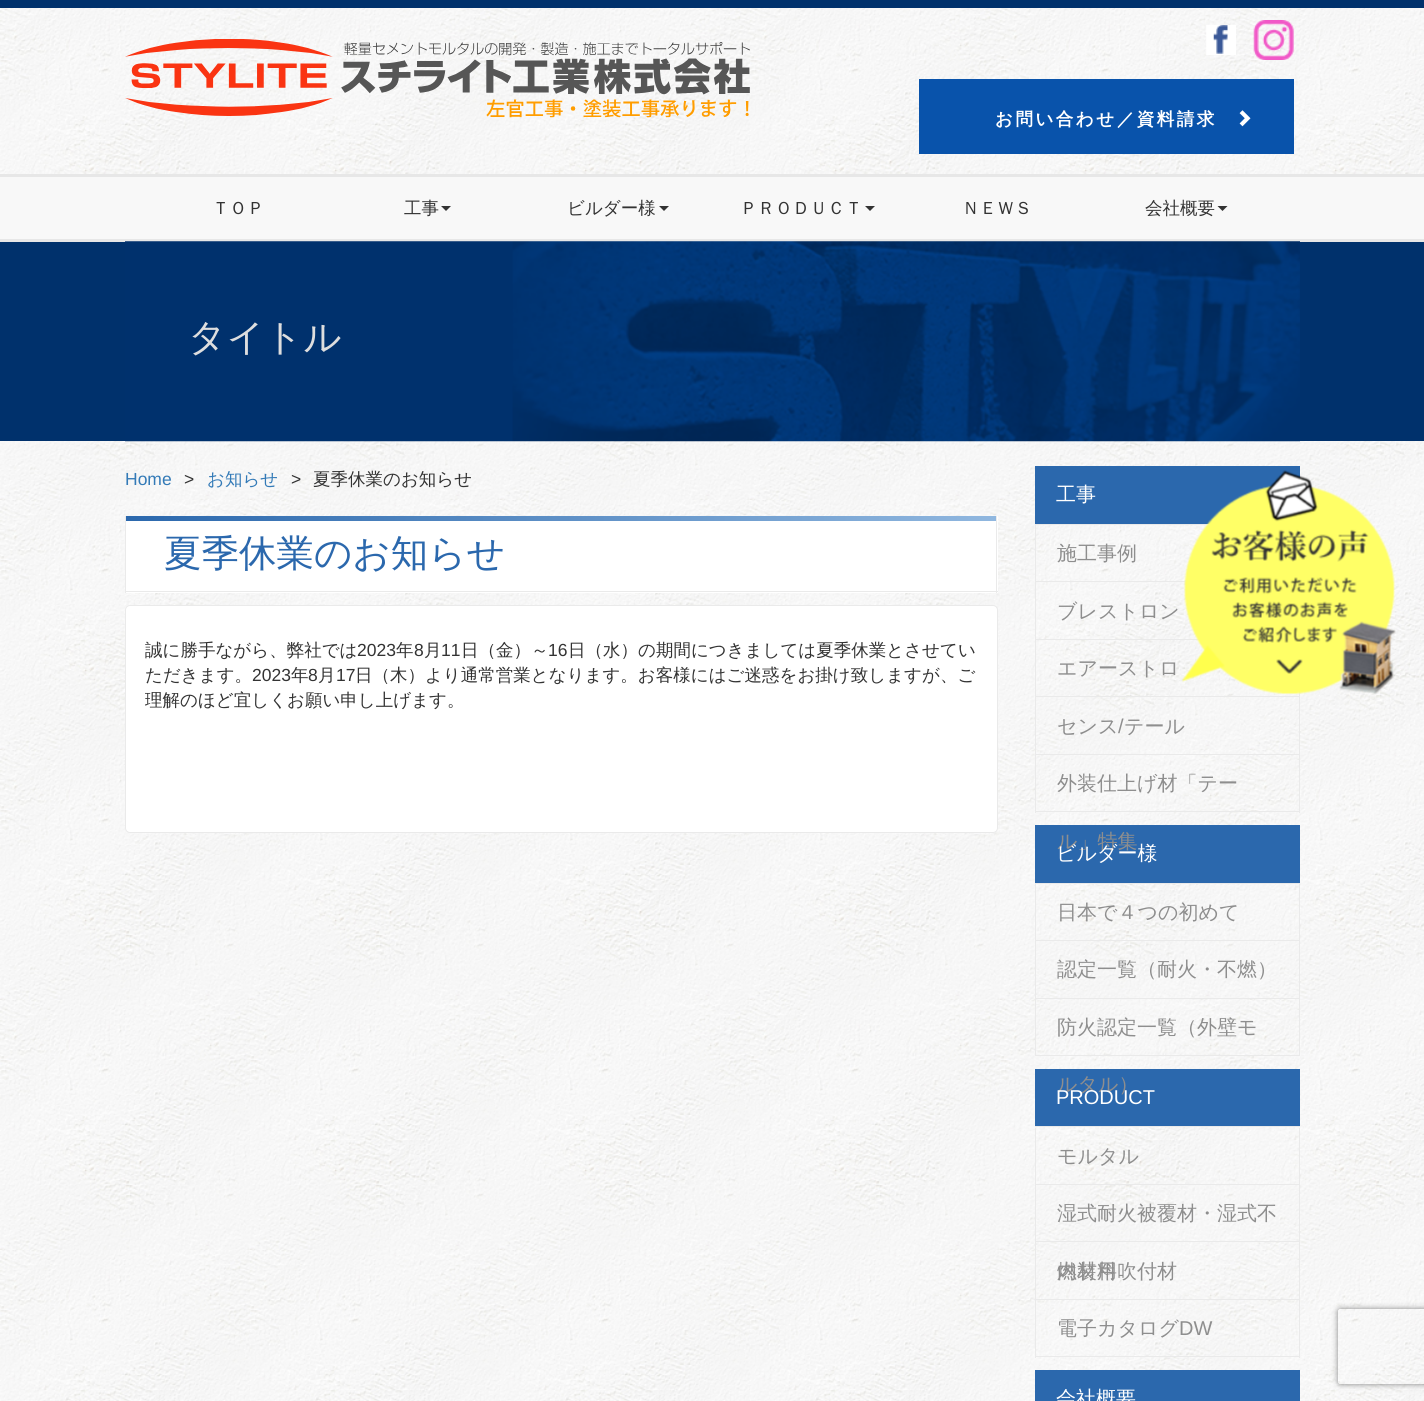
import math
import cairo

surface = cairo.ImageSurface(cairo.FORMAT_RGB24, 1424, 1401)
cr = cairo.Context(surface)
options = cairo.FontOptions()
options.set_hint_metrics(cairo.HINT_METRICS_OFF)
options.set_hint_style(cairo.HINT_STYLE_NONE)
cr.set_font_options(options)
cr.set_miter_limit(4)


def rgb(code):
    cr.set_source_rgb(*(v / 255 for v in bytes.fromhex(code[-6:])))


def tracked(x, y, s, letter, word):
    cr.move_to(x, y)
    for ch in s:
        cr.show_text(ch)
        cr.rel_move_to(letter + word * (ch == ' '), 0)


def rrect(x, y, w, h, r):
    cr.new_sub_path()
    for i, (u, v) in enumerate([(x + w - r, y + h - r), (x + r, y + h - r), (x + r, y + r), (x + w - r, y + r)]):
        cr.arc(u, v, r, i * math.pi / 2, (i + 1) * math.pi / 2)
    cr.close_path()


def soft_shadow(x, y, w, h, r, blur, alpha):
    cr.push_group_with_content(cairo.CONTENT_ALPHA)
    cr.set_operator(cairo.OPERATOR_SOURCE)
    for i in range(15, -16, -2):
        e = blur * i / 6
        if min(w, h) + 2 * e > 0:
            cr.set_source_rgba(0, 0, 0, alpha * math.erfc((i - 1) / 8.5) / 2)
            rrect(x - e, y - e, w + 2 * e, h + 2 * e, max(0, min(r + e + blur * .6, min(w, h) / 2 + e)))
            cr.fill()
    cr.mask(cr.pop_group())


def image(path, x, y, w, h):
    cr.save()
    cr.set_source_surface(cairo.ImageSurface.create_from_png(path), x, y)
    cr.rectangle(x, y, w, h)
    cr.fill()
    cr.restore()


rgb("#ffffff")
cr.paint()
image("img/1.png", 0, 8, 1424, 1393)
rgb("#00316c")
cr.rectangle(0, 0, 1424, 8)
cr.fill()
image("img/2.png", 125, 39, 625, 79)
image("img/3.png", 1206, 25, 30, 30)
image("img/4.png", 1253, 20, 41, 40)
rgb("#0953ab")
cr.rectangle(919, 79, 375, 75)
cr.fill()
image("img/5.png", 1239, 110, 12, 17)
for x, y, w, h, color in [
    (0, 177, 1424, 62, "#f8f8f8"),
    (0, 174, 1424, 3, "#e7e7e7"),
    (0, 239, 1424, 3, "#e7e7e7"),
]:
    rgb(color)
    cr.rectangle(x, y, w, h)
    cr.fill()
rgb("#333333")
cr.new_path()
cr.move_to(441, 206)
cr.line_to(451, 206)
cr.line_to(446, 211)
cr.close_path()
cr.fill()
cr.new_path()
cr.move_to(659, 206)
cr.line_to(669, 206)
cr.line_to(664, 211)
cr.close_path()
cr.fill()
cr.new_path()
cr.move_to(865, 206)
cr.line_to(875, 206)
cr.line_to(870, 211)
cr.close_path()
cr.fill()
cr.new_path()
cr.move_to(1217.5, 206)
cr.line_to(1227.5, 206)
cr.line_to(1222.5, 211)
cr.close_path()
cr.fill()
rgb("#00316c")
cr.rectangle(0, 242, 1424, 199)
cr.fill()
image("img/6.png", 125, 241, 1175, 201)
for x, y, w, h, color in [
    (126, 516, 872, 77, "#ffffff"),
    (996, 516, 1, 77, "#eaeaea"),
    (125, 591, 873, 1, "#eaeaea"),
    (125, 516, 1, 77, "#eaeaea"),
]:
    rgb(color)
    cr.rectangle(x, y, w, h)
    cr.fill()
gradient = cairo.LinearGradient(126, 516, 996, 521)
gradient.add_color_stop_rgba(0, 0.169, 0.408, 0.678, 1)
gradient.add_color_stop_rgba(1, 0.565, 0.718, 0.875, 1)
cr.set_source(gradient)
cr.rectangle(126, 516, 870, 5)
cr.fill()
rgb("#ffffff")
rrect(125.5, 605.5, 872, 227, 4.5)
cr.fill_preserve()
rgb("#eaeaea")
cr.set_line_width(1)
cr.stroke()
for x, y, w, h, color in [
    (1035, 466, 265, 58, "#2b68ad"),
    (1035, 524, 175, 1, "#eaeaea"),
    (1035, 581, 152, 1, "#eaeaea"),
    (1035, 525, 1, 58, "#eaeaea"),
    (1035, 639, 165, 1, "#eaeaea"),
    (1035, 583, 1, 57, "#eaeaea"),
    (1299, 691, 1, 122, "#eaeaea"),
    (1035, 696, 265, 1, "#eaeaea"),
    (1035, 640, 1, 58, "#eaeaea"),
    (1035, 754, 265, 1, "#eaeaea"),
    (1035, 698, 1, 57, "#eaeaea"),
    (1035, 811, 265, 1, "#eaeaea"),
    (1035, 755, 1, 58, "#eaeaea"),
    (1035, 825, 265, 58, "#2b68ad"),
    (1035, 883, 265, 1, "#eaeaea"),
    (1299, 884, 1, 172, "#eaeaea"),
    (1035, 940, 265, 1, "#eaeaea"),
    (1035, 884, 1, 57, "#eaeaea"),
    (1035, 998, 265, 1, "#eaeaea"),
    (1035, 941, 1, 58, "#eaeaea"),
    (1035, 1055, 265, 1, "#eaeaea"),
    (1035, 999, 1, 57, "#eaeaea"),
    (1035, 1069, 265, 57, "#2b68ad"),
    (1035, 1126, 265, 1, "#eaeaea"),
    (1299, 1128, 1, 230, "#eaeaea"),
    (1035, 1184, 265, 1, "#eaeaea"),
    (1035, 1128, 1, 57, "#eaeaea"),
    (1035, 1241, 265, 1, "#eaeaea"),
    (1035, 1185, 1, 58, "#eaeaea"),
    (1035, 1299, 265, 1, "#eaeaea"),
    (1035, 1243, 1, 57, "#eaeaea"),
    (1035, 1356, 265, 1, "#eaeaea"),
    (1035, 1300, 1, 58, "#eaeaea"),
    (1035, 1370, 265, 31, "#2b68ad"),
]:
    rgb(color)
    cr.rectangle(x, y, w, h)
    cr.fill()
image("img/7.png", 1182, 470, 214, 225)
cr.save()
cr.set_fill_rule(cairo.FILL_RULE_EVEN_ODD)
cr.new_path()
cr.move_to(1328, 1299)
cr.line_to(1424, 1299)
cr.line_to(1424, 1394)
cr.line_to(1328, 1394)
cr.close_path()
cr.move_to(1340.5, 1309)
cr.line_to(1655.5, 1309)
cr.curve_to(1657, 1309, 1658, 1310, 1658, 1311.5)
cr.line_to(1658, 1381.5)
cr.curve_to(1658, 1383, 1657, 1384, 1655.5, 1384)
cr.line_to(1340.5, 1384)
cr.curve_to(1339, 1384, 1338, 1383, 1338, 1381.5)
cr.line_to(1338, 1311.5)
cr.curve_to(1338, 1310, 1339, 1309, 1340.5, 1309)
cr.close_path()
cr.clip()
rgb("#808080")
soft_shadow(1338, 1309, 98, 75, 2.5, 3, 1)
cr.restore()
cr.select_font_face("WenQuanYi Zen Hei", cairo.FONT_SLANT_NORMAL, cairo.FONT_WEIGHT_BOLD)
cr.set_font_size(17.5)
rgb("#ffffff")
tracked(995, 125, "お問い合わせ／資料請求", 2.5, 0)
cr.select_font_face("WenQuanYi Zen Hei Medium")
rgb("#333333")
for x, y, s in [
    (212, 214, "ＴＯＰ"),
    (404, 214, "工事"),
    (567, 214, "ビルダー様"),
    (740, 214, "ＰＲＯＤＵＣＴ"),
    (962, 214, "ＮＥＷＳ"),
    (1145, 214, "会社概要"),
]:
    cr.move_to(x, y)
    cr.show_text(s)
cr.set_font_size(37.5)
rgb("#dedede")
cr.move_to(188, 350)
cr.show_text("タイトル")
cr.select_font_face("Liberation Sans")
cr.set_font_size(17.5)
rgb("#337ab7")
cr.move_to(125, 485)
cr.show_text("Home")
rgb("#333333")
cr.move_to(184, 485)
cr.show_text(">")
cr.select_font_face("WenQuanYi Zen Hei Medium")
rgb("#337ab7")
cr.move_to(207, 485)
cr.show_text("お知らせ")
cr.select_font_face("Liberation Sans")
rgb("#333333")
cr.move_to(291, 485)
cr.show_text(">")
cr.select_font_face("WenQuanYi Zen Hei Medium")
cr.move_to(313, 485)
cr.show_text("夏季休業のお知らせ")
cr.set_font_size(37.5)
rgb("#2b68ad")
cr.move_to(164, 566)
cr.show_text("夏季休業のお知らせ")
cr.set_font_size(17.5)
rgb("#333333")
cr.move_to(145, 656)
cr.show_text("誠に勝手ながら、弊社では")
cr.select_font_face("Liberation Sans")
cr.move_to(357, 656)
cr.show_text("2023")
cr.select_font_face("WenQuanYi Zen Hei Medium")
cr.move_to(396, 656)
cr.show_text("年")
cr.select_font_face("Liberation Sans")
cr.move_to(414, 656)
cr.show_text("8")
cr.select_font_face("WenQuanYi Zen Hei Medium")
cr.move_to(424, 656)
cr.show_text("月")
cr.select_font_face("Liberation Sans")
cr.move_to(441, 656)
cr.show_text("11")
cr.select_font_face("WenQuanYi Zen Hei Medium")
cr.move_to(461, 656)
cr.show_text("日（金）～")
cr.select_font_face("Liberation Sans")
cr.move_to(548, 656)
cr.show_text("16")
cr.select_font_face("WenQuanYi Zen Hei Medium")
cr.move_to(568, 656)
cr.show_text("日（水）の期間につきましては夏季休業とさせてい")
cr.move_to(145, 681)
cr.show_text("ただきます。")
cr.select_font_face("Liberation Sans")
cr.move_to(252, 681)
cr.show_text("2023")
cr.select_font_face("WenQuanYi Zen Hei Medium")
cr.move_to(291, 681)
cr.show_text("年")
cr.select_font_face("Liberation Sans")
cr.move_to(308, 681)
cr.show_text("8")
cr.select_font_face("WenQuanYi Zen Hei Medium")
cr.move_to(318, 681)
cr.show_text("月")
cr.select_font_face("Liberation Sans")
cr.move_to(336, 681)
cr.show_text("17")
cr.select_font_face("WenQuanYi Zen Hei Medium")
cr.move_to(355, 681)
cr.show_text("日（木）より通常営業となります。お客様にはご迷惑をお掛け致しますが、ご")
cr.move_to(145, 706)
cr.show_text("理解のほど宜しくお願い申し上げます。")
cr.set_font_size(20)
rgb("#ffffff")
cr.move_to(1056, 501)
cr.show_text("工事")
rgb("#8e8e8e")
for x, y, s in [
    (1057, 560, "施工事例"),
    (1057, 618, "ブレストロン"),
    (1057, 675, "エアーストロ"),
    (1057, 733, "センス"),
]:
    cr.move_to(x, y)
    cr.show_text(s)
cr.select_font_face("Liberation Sans")
cr.move_to(1118, 733)
cr.show_text("/")
cr.select_font_face("WenQuanYi Zen Hei Medium")
for x, y, s in [
    (1124, 733, "テール"),
    (1057, 790, "外装仕上げ材「テー"),
    (1057, 848, "ル」特集"),
]:
    cr.move_to(x, y)
    cr.show_text(s)
rgb("#ffffff")
cr.move_to(1056, 860)
cr.show_text("ビルダー様")
rgb("#8e8e8e")
for x, y, s in [
    (1057, 919, "日本で４つの初めて"),
    (1057, 976, "認定一覧（耐火・不燃）"),
    (1057, 1034, "防火認定一覧（外壁モ"),
    (1057, 1091, "ルタル）"),
]:
    cr.move_to(x, y)
    cr.show_text(s)
cr.select_font_face("Liberation Sans")
rgb("#ffffff")
cr.move_to(1056, 1104)
cr.show_text("PRODUCT")
cr.select_font_face("WenQuanYi Zen Hei Medium")
rgb("#8e8e8e")
for x, y, s in [
    (1057, 1163, "モルタル"),
    (1057, 1220, "湿式耐火被覆材・湿式不"),
    (1057, 1278, "燃材料"),
    (1057, 1278, "内装用吹付材"),
    (1057, 1335, "電子カタログ"),
]:
    cr.move_to(x, y)
    cr.show_text(s)
cr.select_font_face("Liberation Sans")
cr.move_to(1179, 1335)
cr.show_text("DW")
cr.select_font_face("WenQuanYi Zen Hei Medium")
rgb("#ffffff")
cr.move_to(1056, 1405)
cr.show_text("会社概要")
surface.write_to_png("page.png")
